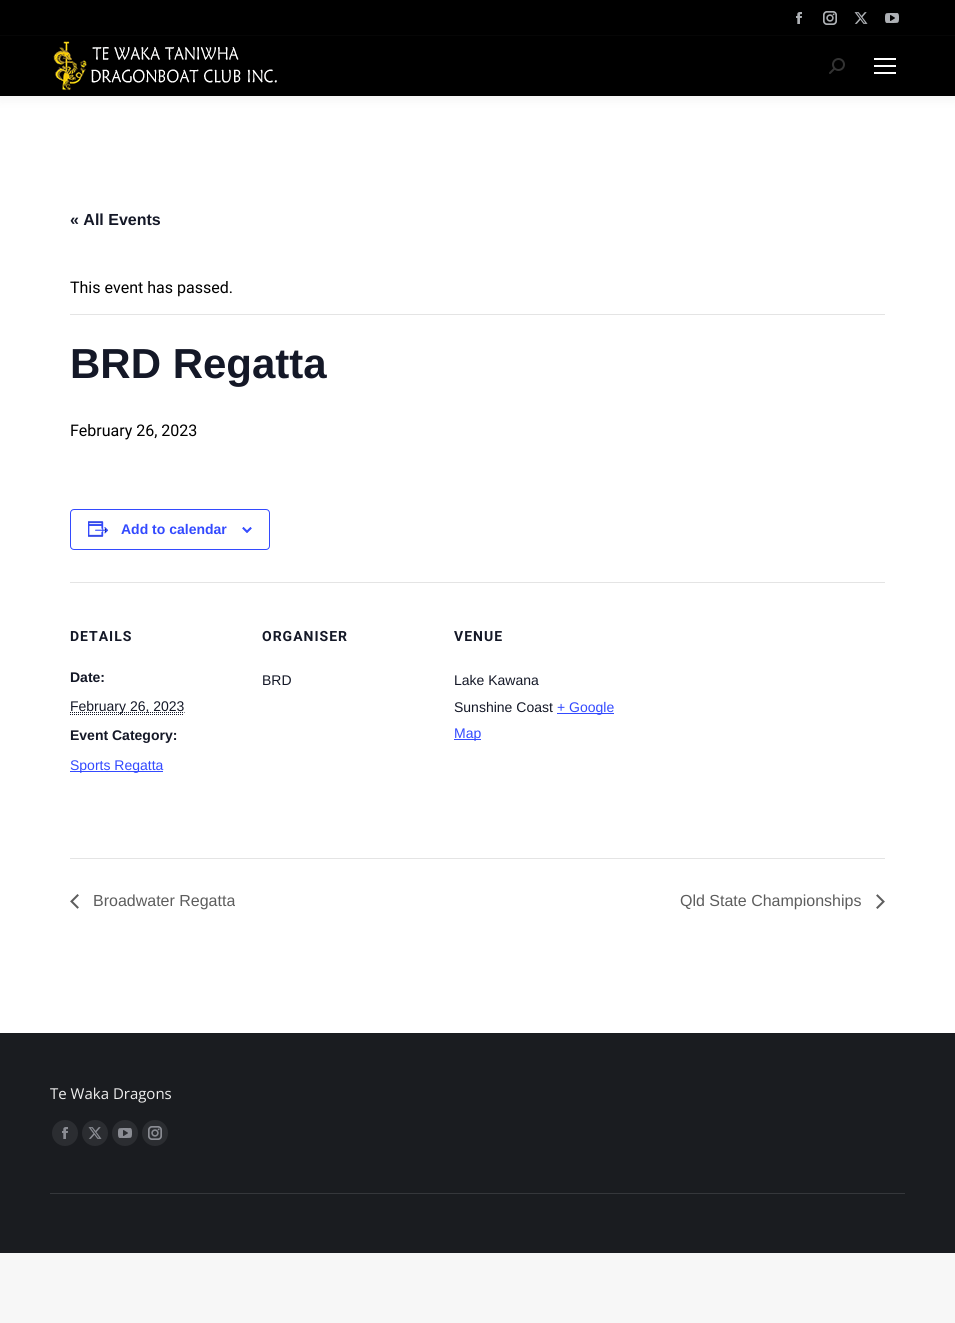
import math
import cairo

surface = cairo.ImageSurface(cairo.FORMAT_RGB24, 955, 1323)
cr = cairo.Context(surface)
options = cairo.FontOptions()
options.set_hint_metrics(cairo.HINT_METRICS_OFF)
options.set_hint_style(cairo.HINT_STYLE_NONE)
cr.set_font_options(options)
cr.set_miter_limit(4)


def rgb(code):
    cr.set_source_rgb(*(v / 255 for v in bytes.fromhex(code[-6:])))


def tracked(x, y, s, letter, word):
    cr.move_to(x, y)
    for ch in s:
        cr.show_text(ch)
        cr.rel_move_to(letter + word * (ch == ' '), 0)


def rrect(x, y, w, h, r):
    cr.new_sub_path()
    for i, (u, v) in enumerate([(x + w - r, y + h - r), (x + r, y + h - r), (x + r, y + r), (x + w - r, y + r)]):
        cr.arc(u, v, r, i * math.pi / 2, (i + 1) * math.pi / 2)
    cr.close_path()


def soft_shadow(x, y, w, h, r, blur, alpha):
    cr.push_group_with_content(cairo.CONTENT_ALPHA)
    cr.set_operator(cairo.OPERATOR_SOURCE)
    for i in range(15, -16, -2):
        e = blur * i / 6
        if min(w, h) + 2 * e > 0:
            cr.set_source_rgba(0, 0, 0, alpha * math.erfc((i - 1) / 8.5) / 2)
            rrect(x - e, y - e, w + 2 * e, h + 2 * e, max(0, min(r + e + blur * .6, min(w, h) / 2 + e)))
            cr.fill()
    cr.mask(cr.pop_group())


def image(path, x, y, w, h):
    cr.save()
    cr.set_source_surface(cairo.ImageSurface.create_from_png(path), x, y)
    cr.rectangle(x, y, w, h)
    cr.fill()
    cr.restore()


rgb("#f7f7f7")
cr.paint()
rgb("#ffffff")
cr.rectangle(0, 96, 955, 937)
cr.fill()
rgb("#000000")
soft_shadow(-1, -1, 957, 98, 0, 7.5, 0.07)
rgb("#000000")
cr.rectangle(0, 0, 955, 96)
cr.fill()
image("img/1.png", 796, 12, 6, 12)
image("img/2.png", 823, 11, 14, 14)
image("img/3.png", 854, 12, 14, 12)
image("img/4.png", 885, 13, 14, 10)
rgb("#060606")
cr.rectangle(0, 35, 955, 1)
cr.fill()
image("img/5.png", 53, 41, 224, 50)
image("img/6.png", 829, 58, 16, 16)
for x, y, w, h, color in [
    (874, 58, 22, 2, "#ffffff"),
    (874, 65, 22, 2, "#ffffff"),
    (874, 72, 22, 2, "#ffffff"),
    (70, 314, 815, 1, "#e4e4e4"),
]:
    rgb(color)
    cr.rectangle(x, y, w, h)
    cr.fill()
rrect(70.5, 509.5, 199, 40, 3.5)
rgb("#334aff")
cr.set_line_width(1)
cr.stroke()
image("img/7.png", 88, 521, 21, 16)
image("img/8.png", 242, 527, 10, 6)
rgb("#e4e4e4")
cr.rectangle(70, 582, 815, 1)
cr.fill()
cr.new_path()
cr.move_to(70, 714.5)
cr.line_to(184, 714.5)
rgb("#141827")
cr.set_dash([1, 1])
cr.stroke()
cr.new_path()
cr.move_to(70, 712.5)
cr.line_to(184.5, 712.5)
cr.stroke()
for x, y, w, h, color in [
    (70, 771, 93, 1, "#334aff"),
    (557, 713, 57, 1, "#334aff"),
    (454, 739, 27, 1, "#334aff"),
    (70, 858, 815, 1, "#e4e4e4"),
]:
    rgb(color)
    cr.rectangle(x, y, w, h)
    cr.fill()
image("img/9.png", 70, 894, 9, 15)
image("img/10.png", 876, 894, 9, 15)
rgb("#1a1c20")
cr.rectangle(0, 1033, 955, 220)
cr.fill()
rgb("#2b2d31")
cr.arc(65, 1133, 13, 0, 2 * math.pi)
cr.fill()
image("img/11.png", 62, 1127, 6, 12)
cr.arc(95, 1133, 13, 0, 2 * math.pi)
cr.fill()
image("img/12.png", 88, 1127, 14, 12)
cr.arc(125, 1133, 13, 0, 2 * math.pi)
cr.fill()
image("img/13.png", 118, 1128, 14, 10)
cr.arc(155, 1133, 13, 0, 2 * math.pi)
cr.fill()
image("img/14.png", 148, 1126, 14, 14)
rgb("#35373b")
cr.rectangle(50, 1193, 855, 1)
cr.fill()
cr.select_font_face("Liberation Sans", cairo.FONT_SLANT_NORMAL, cairo.FONT_WEIGHT_BOLD)
cr.set_font_size(16)
rgb("#141827")
cr.move_to(70, 225)
cr.show_text("« All Events")
cr.select_font_face("Roboto")
rgb("#000000")
cr.move_to(70, 293)
cr.show_text("This event has passed.")
cr.select_font_face("Liberation Sans", cairo.FONT_SLANT_NORMAL, cairo.FONT_WEIGHT_BOLD)
cr.set_font_size(42)
rgb("#141827")
cr.move_to(70, 378)
cr.show_text("BRD Regatta")
cr.select_font_face("Roboto")
cr.set_font_size(16)
rgb("#000000")
cr.move_to(70, 436)
cr.show_text("February 26, 2023")
cr.select_font_face("Liberation Sans", cairo.FONT_SLANT_NORMAL, cairo.FONT_WEIGHT_BOLD)
cr.set_font_size(14)
rgb("#334aff")
cr.move_to(121, 534)
cr.show_text("Add to calendar")
cr.select_font_face("Roboto", cairo.FONT_SLANT_NORMAL, cairo.FONT_WEIGHT_BOLD)
rgb("#141827")
tracked(70, 641, "DETAILS", 1, 0)
cr.select_font_face("Liberation Sans", cairo.FONT_SLANT_NORMAL, cairo.FONT_WEIGHT_BOLD)
cr.move_to(70, 682)
cr.show_text("Date:")
cr.select_font_face("Liberation Sans")
cr.move_to(70, 711)
cr.show_text("February 26, 2023")
cr.select_font_face("Liberation Sans", cairo.FONT_SLANT_NORMAL, cairo.FONT_WEIGHT_BOLD)
cr.move_to(70, 740)
cr.show_text("Event Category:")
cr.select_font_face("Liberation Sans")
rgb("#334aff")
cr.move_to(70, 770)
cr.show_text("Sports Regatta")
cr.select_font_face("Roboto", cairo.FONT_SLANT_NORMAL, cairo.FONT_WEIGHT_BOLD)
rgb("#141827")
tracked(262, 641, "ORGANISER", 1, 0)
cr.select_font_face("Liberation Sans")
cr.move_to(262, 685)
cr.show_text("BRD")
cr.select_font_face("Roboto", cairo.FONT_SLANT_NORMAL, cairo.FONT_WEIGHT_BOLD)
tracked(454, 641, "VENUE", 1, 0)
cr.select_font_face("Liberation Sans")
cr.move_to(454, 685)
cr.show_text("Lake Kawana")
cr.move_to(454, 712)
cr.show_text("Sunshine Coast")
rgb("#334aff")
cr.move_to(557, 712)
cr.show_text("+ Google")
cr.move_to(454, 738)
cr.show_text("Map")
cr.set_font_size(16)
rgb("#5d5d5d")
cr.move_to(93, 906)
cr.show_text("Broadwater Regatta")
cr.move_to(680, 906)
cr.show_text("Qld State Championships")
cr.select_font_face("Open Sans")
cr.set_font_size(15)
rgb("#eeeeee")
cr.move_to(50, 1099)
cr.show_text("Te Waka Dragons")
surface.write_to_png("page.png")
